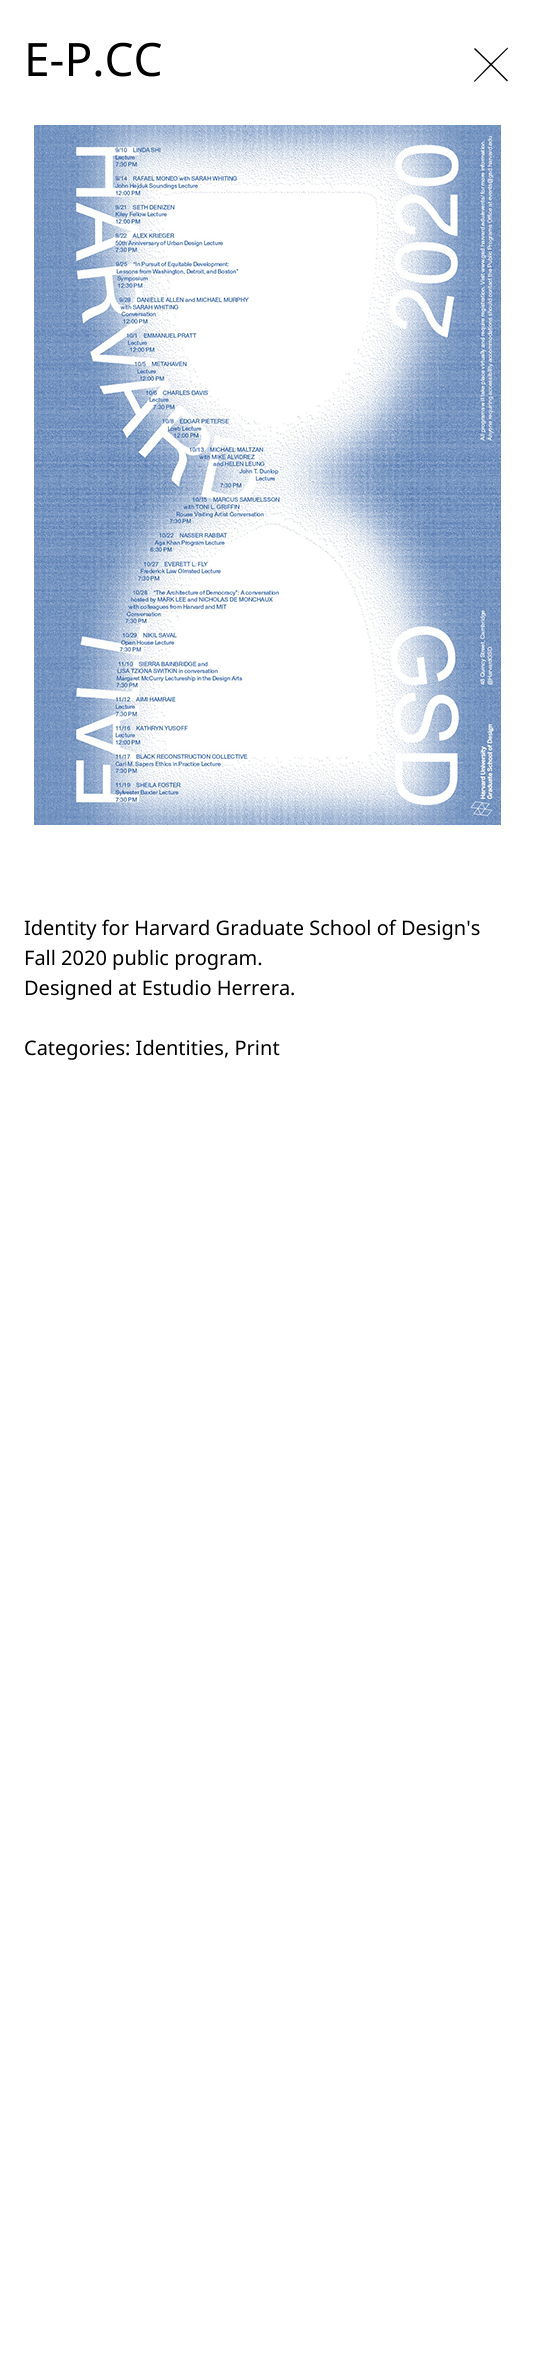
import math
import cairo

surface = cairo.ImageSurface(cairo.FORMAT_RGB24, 535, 2360)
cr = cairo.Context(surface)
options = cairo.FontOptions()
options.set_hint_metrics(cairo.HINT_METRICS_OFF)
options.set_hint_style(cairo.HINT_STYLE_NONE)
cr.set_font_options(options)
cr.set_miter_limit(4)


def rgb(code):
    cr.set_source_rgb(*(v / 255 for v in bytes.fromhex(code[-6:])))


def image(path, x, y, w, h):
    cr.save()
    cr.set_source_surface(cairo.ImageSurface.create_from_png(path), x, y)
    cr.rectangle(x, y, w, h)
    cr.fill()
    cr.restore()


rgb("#ffffff")
cr.paint()
rgb("#000000")
cr.new_path()
cr.move_to(508, 48.5)
cr.line_to(507.5, 47.5)
cr.line_to(491, 63.5)
cr.line_to(475, 48)
cr.line_to(474, 49)
cr.line_to(490, 64.5)
cr.line_to(474, 81)
cr.line_to(474.5, 82)
cr.line_to(491, 65.5)
cr.line_to(507, 81.5)
cr.line_to(508, 80.5)
cr.line_to(492, 64.5)
cr.close_path()
cr.fill()
image("img/1.png", 34, 125, 467, 700)
cr.select_font_face("Noto Sans")
cr.set_font_size(46)
cr.move_to(24, 76)
cr.show_text("E-P.CC")
cr.set_font_size(20)
for x, y, s in [
    (24, 935, "Identity for Harvard Graduate School of Design's"),
    (24, 965, "Fall 2020 public program."),
    (24, 995, "Designed at Estudio Herrera."),
    (24, 1055, "Categories: Identities, Print"),
]:
    cr.move_to(x, y)
    cr.show_text(s)
surface.write_to_png("page.png")
